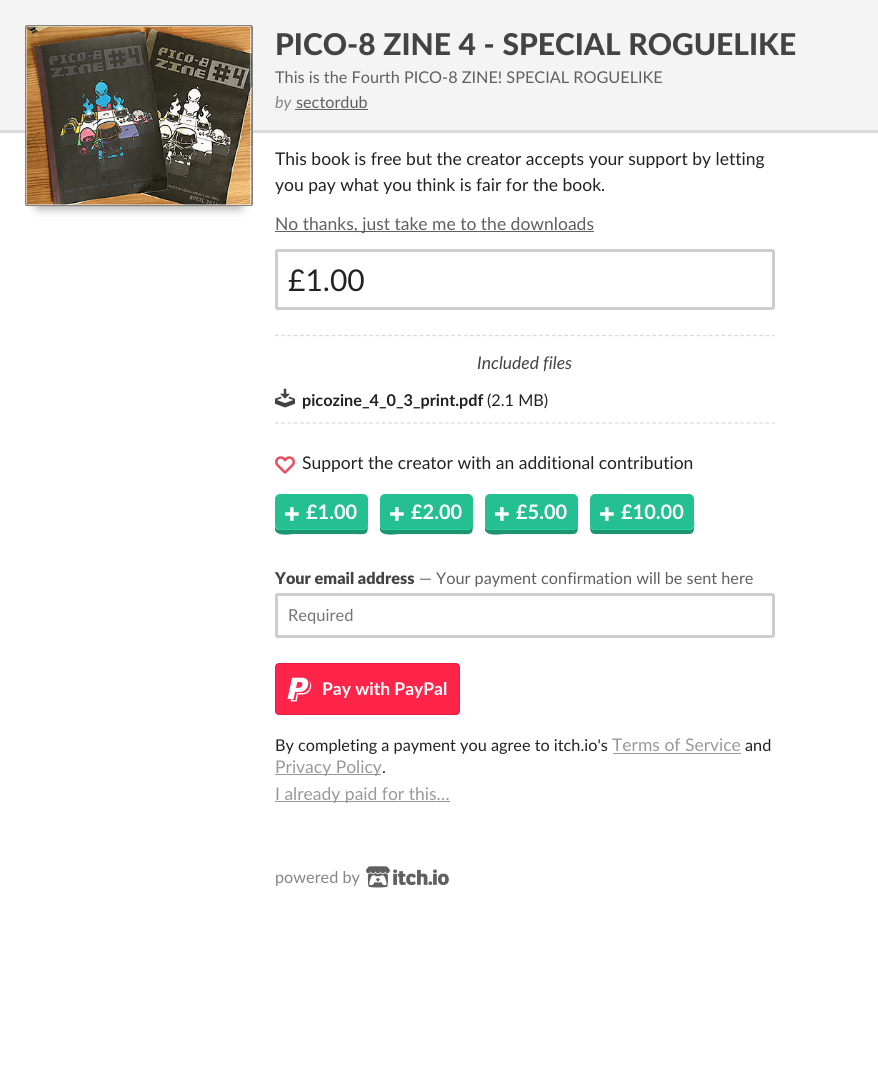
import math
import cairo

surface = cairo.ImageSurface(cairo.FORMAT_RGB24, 878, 1069)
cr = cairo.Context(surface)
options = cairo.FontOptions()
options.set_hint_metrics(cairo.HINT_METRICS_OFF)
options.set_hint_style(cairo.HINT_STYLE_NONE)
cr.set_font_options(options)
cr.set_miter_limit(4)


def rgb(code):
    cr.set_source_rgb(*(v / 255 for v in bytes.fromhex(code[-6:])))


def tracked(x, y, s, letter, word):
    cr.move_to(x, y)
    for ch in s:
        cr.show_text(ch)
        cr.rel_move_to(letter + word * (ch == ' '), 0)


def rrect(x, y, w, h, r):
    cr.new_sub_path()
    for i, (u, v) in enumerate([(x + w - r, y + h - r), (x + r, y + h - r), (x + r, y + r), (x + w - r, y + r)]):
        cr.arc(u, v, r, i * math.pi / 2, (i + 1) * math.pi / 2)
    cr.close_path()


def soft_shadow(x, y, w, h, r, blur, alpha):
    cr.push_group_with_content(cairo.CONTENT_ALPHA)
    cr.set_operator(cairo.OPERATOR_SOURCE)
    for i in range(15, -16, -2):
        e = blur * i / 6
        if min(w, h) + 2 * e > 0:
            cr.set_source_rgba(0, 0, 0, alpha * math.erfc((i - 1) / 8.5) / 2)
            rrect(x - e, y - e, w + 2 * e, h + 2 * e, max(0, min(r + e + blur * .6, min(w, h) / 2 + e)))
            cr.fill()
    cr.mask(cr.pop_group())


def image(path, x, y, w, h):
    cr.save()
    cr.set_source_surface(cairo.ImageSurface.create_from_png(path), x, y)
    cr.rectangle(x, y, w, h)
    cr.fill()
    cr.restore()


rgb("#ffffff")
cr.paint()
rgb("#f4f4f4")
cr.rectangle(0, 0, 878, 130)
cr.fill()
rgb("#dadada")
cr.rectangle(0, 130, 878, 3)
cr.fill()
rgb("#000000")
soft_shadow(38, 50, 202, 156, 0, 6, 0.5)
image("img/1.png", 25, 25, 228, 182)
rrect(26.5, 26.5, 224, 178, 0.5)
cr.set_source_rgba(1, 1, 1, 0.5)
cr.set_line_width(1)
cr.stroke()
rrect(25.5, 25.5, 227, 180, 2)
rgb("#838383")
cr.stroke()
rgb("#606060")
cr.rectangle(295, 109, 73, 1)
cr.fill()
cr.rectangle(275, 231, 319, 1)
cr.fill()
rrect(276.5, 250.5, 497, 58, 1)
rgb("#cdcdcd")
cr.set_line_width(3)
cr.stroke()
cr.new_path()
cr.move_to(275, 335.5)
cr.line_to(775, 335.5)
rgb("#dadada")
cr.set_line_width(1.2)
cr.set_dash([3.75, 2.54])
cr.stroke()
cr.new_path()
cr.move_to(275, 423)
cr.line_to(775, 423)
cr.stroke()
image("img/2.png", 275, 388, 20, 20)
image("img/3.png", 275, 456, 20, 18)
rgb("#1c9571")
cr.new_path()
cr.move_to(275, 525)
cr.line_to(275, 530)
cr.curve_to(277, 537, 292, 534, 294, 534)
cr.line_to(349, 534)
cr.curve_to(368, 534, 368, 537, 368, 520)
cr.line_to(368, 501)
cr.line_to(368, 525)
cr.curve_to(368, 528, 365, 530, 362, 530)
cr.line_to(280, 530)
cr.curve_to(277, 530, 275, 528, 275, 525)
cr.close_path()
cr.fill()
rgb("#24c091")
rrect(275, 494, 93, 36, 5)
cr.fill()
rgb("#27d19e")
cr.rectangle(278, 529, 87, 1)
cr.fill()
image("img/4.png", 285, 507, 14, 14)
rgb("#1c9571")
cr.new_path()
cr.move_to(380, 525)
cr.line_to(380, 530)
cr.curve_to(382, 537, 397, 534, 399, 534)
cr.line_to(454, 534)
cr.curve_to(473, 534, 473, 537, 473, 520)
cr.line_to(472, 501)
cr.line_to(472, 525)
cr.curve_to(472, 528, 470, 530, 468, 530)
cr.line_to(385, 530)
cr.curve_to(382, 530, 380, 528, 380, 525)
cr.close_path()
cr.fill()
rgb("#24c091")
rrect(380, 494, 93, 36, 5)
cr.fill()
rgb("#27d19e")
cr.rectangle(383, 529, 87, 1)
cr.fill()
image("img/4.png", 390, 507, 14, 14)
rgb("#1c9571")
cr.new_path()
cr.move_to(485, 525)
cr.line_to(485, 530)
cr.curve_to(487, 537, 502, 534, 504, 534)
cr.line_to(559, 534)
cr.curve_to(578, 534, 578, 537, 578, 520)
cr.line_to(578, 501)
cr.line_to(578, 525)
cr.curve_to(578, 528, 575, 530, 572, 530)
cr.line_to(490, 530)
cr.curve_to(487, 530, 485, 528, 485, 525)
cr.close_path()
cr.fill()
rgb("#24c091")
rrect(485, 494, 93, 36, 5)
cr.fill()
rgb("#27d19e")
cr.rectangle(488, 529, 87, 1)
cr.fill()
image("img/4.png", 495, 507, 14, 14)
rgb("#1c9571")
cr.new_path()
cr.move_to(590, 525)
cr.curve_to(590, 529, 590, 534, 595, 534)
cr.line_to(689, 534)
cr.curve_to(696, 534, 694, 524, 694, 520)
cr.line_to(694, 501)
cr.line_to(694, 525)
cr.curve_to(694, 528, 692, 530, 689, 530)
cr.line_to(595, 530)
cr.curve_to(592, 530, 590, 528, 590, 525)
cr.close_path()
cr.fill()
rgb("#24c091")
rrect(590, 494, 104, 36, 5)
cr.fill()
rgb("#27d19e")
cr.rectangle(593, 529, 98, 1)
cr.fill()
image("img/4.png", 600, 507, 14, 14)
rrect(276.5, 594.5, 497, 42, 1)
rgb("#cdcdcd")
cr.set_line_width(3)
cr.set_dash([])
cr.stroke()
rgb("#ff2449")
rrect(275, 663, 185, 52, 4)
cr.fill()
rrect(275.5, 663.5, 184, 51, 3.5)
cr.set_source_rgba(0, 0, 0, 0.1)
cr.set_line_width(1)
cr.stroke()
image("img/5.png", 287, 677, 25, 25)
for x, y, w, h, color in [
    (613, 753, 128, 1, "#999999"),
    (275, 774, 106, 1, "#999999"),
    (275, 801, 175, 1, "#999999"),
]:
    rgb(color)
    cr.rectangle(x, y, w, h)
    cr.fill()
image("img/6.png", 366, 866, 83, 22)
cr.select_font_face("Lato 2 Black")
cr.set_font_size(30)
rgb("#434343")
tracked(275, 55, "PICO-8 ZINE 4 - SPECIAL ROGUELIKE", 0, 0.5)
cr.select_font_face("Lato")
cr.set_font_size(16.25)
rgb("#606060")
cr.move_to(275, 83)
cr.show_text("This is the Fourth PICO-8 ZINE! SPECIAL ROGUELIKE")
cr.select_font_face("Lato", cairo.FONT_SLANT_ITALIC)
rgb("#858585")
cr.move_to(275, 108)
cr.show_text("by")
cr.select_font_face("Lato")
rgb("#606060")
cr.move_to(296, 108)
cr.show_text("sectordub")
cr.set_font_size(17.5)
rgb("#222222")
cr.move_to(275, 165)
cr.show_text("This book is free but the creator accepts your support by letting")
cr.move_to(275, 191)
cr.show_text("you pay what you think is fair for the book.")
rgb("#606060")
cr.move_to(275, 230)
cr.show_text("No thanks, just take me to the downloads")
cr.set_font_size(30)
rgb("#222222")
cr.move_to(288, 291)
cr.show_text("£1.00")
cr.select_font_face("Lato", cairo.FONT_SLANT_ITALIC)
cr.set_font_size(17.5)
rgb("#434343")
cr.move_to(477, 369)
cr.show_text("Included files")
cr.select_font_face("Lato", cairo.FONT_SLANT_NORMAL, cairo.FONT_WEIGHT_BOLD)
cr.set_font_size(16.25)
rgb("#222222")
cr.move_to(302, 406)
cr.show_text("picozine_4_0_3_print.pdf")
cr.select_font_face("Lato")
cr.move_to(487, 406)
cr.show_text("(2.1 MB)")
cr.set_font_size(17.5)
cr.move_to(302, 469)
cr.show_text("Support the creator with an additional contribution")
cr.select_font_face("Lato", cairo.FONT_SLANT_NORMAL, cairo.FONT_WEIGHT_BOLD)
cr.set_font_size(20)
rgb("#ffffff")
for x, y, s in [
    (306, 519, "£1.00"),
    (411, 519, "£2.00"),
    (516, 519, "£5.00"),
    (621, 519, "£10.00"),
]:
    cr.move_to(x, y)
    cr.show_text(s)
cr.select_font_face("Lato Black")
cr.set_font_size(16.25)
rgb("#434343")
cr.move_to(275, 584)
cr.show_text("Your email address")
cr.select_font_face("Lato")
rgb("#606060")
cr.move_to(419, 584)
cr.show_text("— Your payment confirmation will be sent here")
cr.set_font_size(16.5)
rgb("#757575")
cr.move_to(288, 621)
cr.show_text("Required")
cr.select_font_face("Lato", cairo.FONT_SLANT_NORMAL, cairo.FONT_WEIGHT_BOLD)
cr.set_font_size(17.5)
rgb("#ffffff")
cr.move_to(322, 695)
cr.show_text("Pay with PayPal")
cr.select_font_face("Lato")
cr.set_font_size(16.25)
rgb("#222222")
cr.move_to(275, 751)
cr.show_text("By completing a payment you agree to itch.io's")
cr.set_font_size(17.5)
rgb("#999999")
cr.move_to(612, 751)
cr.show_text("Terms of Service")
cr.set_font_size(16.25)
rgb("#222222")
cr.move_to(745, 751)
cr.show_text("and")
cr.set_font_size(17.5)
rgb("#999999")
cr.move_to(275, 773)
cr.show_text("Privacy Policy")
cr.set_font_size(16.25)
rgb("#222222")
cr.move_to(382, 773)
cr.show_text(".")
cr.set_font_size(17.5)
rgb("#999999")
cr.move_to(275, 800)
cr.show_text("I already paid for this…")
cr.set_font_size(16.25)
rgb("#858585")
cr.move_to(275, 883)
cr.show_text("powered by")
surface.write_to_png("page.png")
